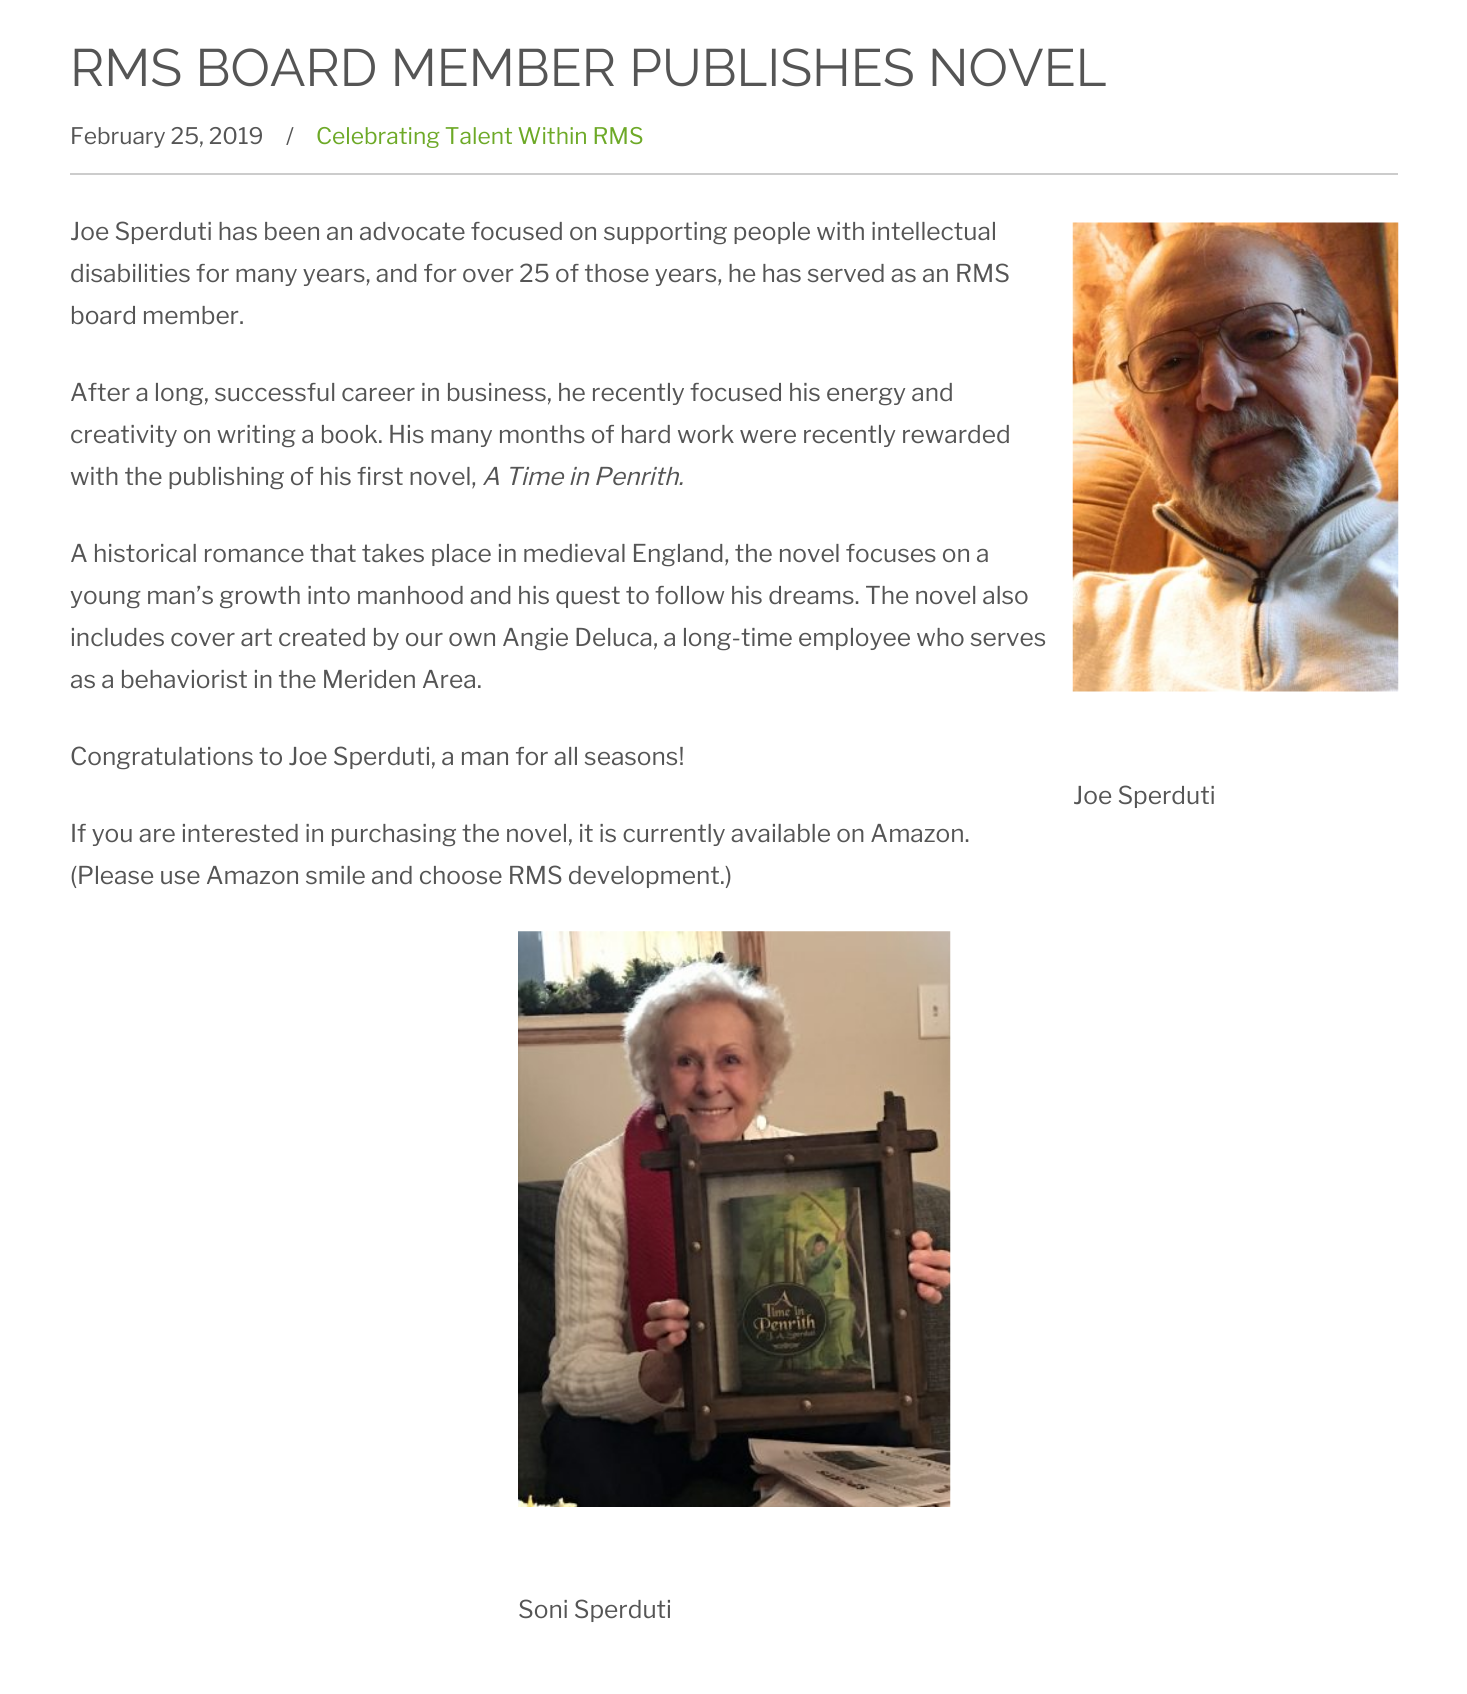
import math
import cairo

surface = cairo.ImageSurface(cairo.FORMAT_RGB24, 1467, 1694)
cr = cairo.Context(surface)
options = cairo.FontOptions()
options.set_hint_metrics(cairo.HINT_METRICS_OFF)
options.set_hint_style(cairo.HINT_STYLE_NONE)
cr.set_font_options(options)
cr.set_miter_limit(4)


def rgb(code):
    cr.set_source_rgb(*(v / 255 for v in bytes.fromhex(code[-6:])))


def image(path, x, y, w, h):
    cr.save()
    cr.set_source_surface(cairo.ImageSurface.create_from_png(path), x, y)
    cr.rectangle(x, y, w, h)
    cr.fill()
    cr.restore()


rgb("#ffffff")
cr.paint()
rgb("#cccccc")
cr.rectangle(70, 173, 1328, 2)
cr.fill()
image("img/1.png", 1072, 222, 327, 470)
image("img/2.png", 518, 931, 433, 576)
cr.select_font_face("Raleway")
cr.set_font_size(52.5)
rgb("#555555")
cr.move_to(70, 86)
cr.show_text("RMS BOARD MEMBER PUBLISHES NOVEL")
cr.select_font_face("Libre Franklin")
cr.set_font_size(22.75)
cr.move_to(70, 144)
cr.show_text("February 25, 2019")
cr.move_to(286, 144)
cr.show_text("/")
rgb("#6da927")
cr.move_to(316, 144)
cr.show_text("Celebrating Talent Within RMS")
cr.set_font_size(24.5)
rgb("#555555")
for x, y, s in [
    (70, 240, "Joe Sperduti has been an advocate focused on supporting people with intellectual"),
    (70, 282, "disabilities for many years, and for over 25 of those years, he has served as an RMS"),
    (70, 324, "board member."),
    (70, 401, "After a long, successful career in business, he recently focused his energy and"),
    (70, 443, "creativity on writing a book. His many months of hard work were recently rewarded"),
    (70, 485, "with the publishing of his first novel,"),
]:
    cr.move_to(x, y)
    cr.show_text(s)
cr.select_font_face("Libre Franklin", cairo.FONT_SLANT_ITALIC)
cr.move_to(482, 485)
cr.show_text("A Time in Penrith.")
cr.select_font_face("Libre Franklin")
for x, y, s in [
    (70, 562, "A historical romance that takes place in medieval England, the novel focuses on a"),
    (70, 604, "young man’s growth into manhood and his quest to follow his dreams. The novel also"),
    (70, 646, "includes cover art created by our own Angie Deluca, a long-time employee who serves"),
    (70, 688, "as a behaviorist in the Meriden Area."),
    (70, 765, "Congratulations to Joe Sperduti, a man for all seasons!"),
    (1073, 804, "Joe Sperduti"),
    (70, 842, "If you are interested in purchasing the novel, it is currently available on Amazon."),
    (70, 884, "(Please use Amazon smile and choose RMS development.)"),
    (518, 1618, "Soni Sperduti"),
]:
    cr.move_to(x, y)
    cr.show_text(s)
surface.write_to_png("page.png")
